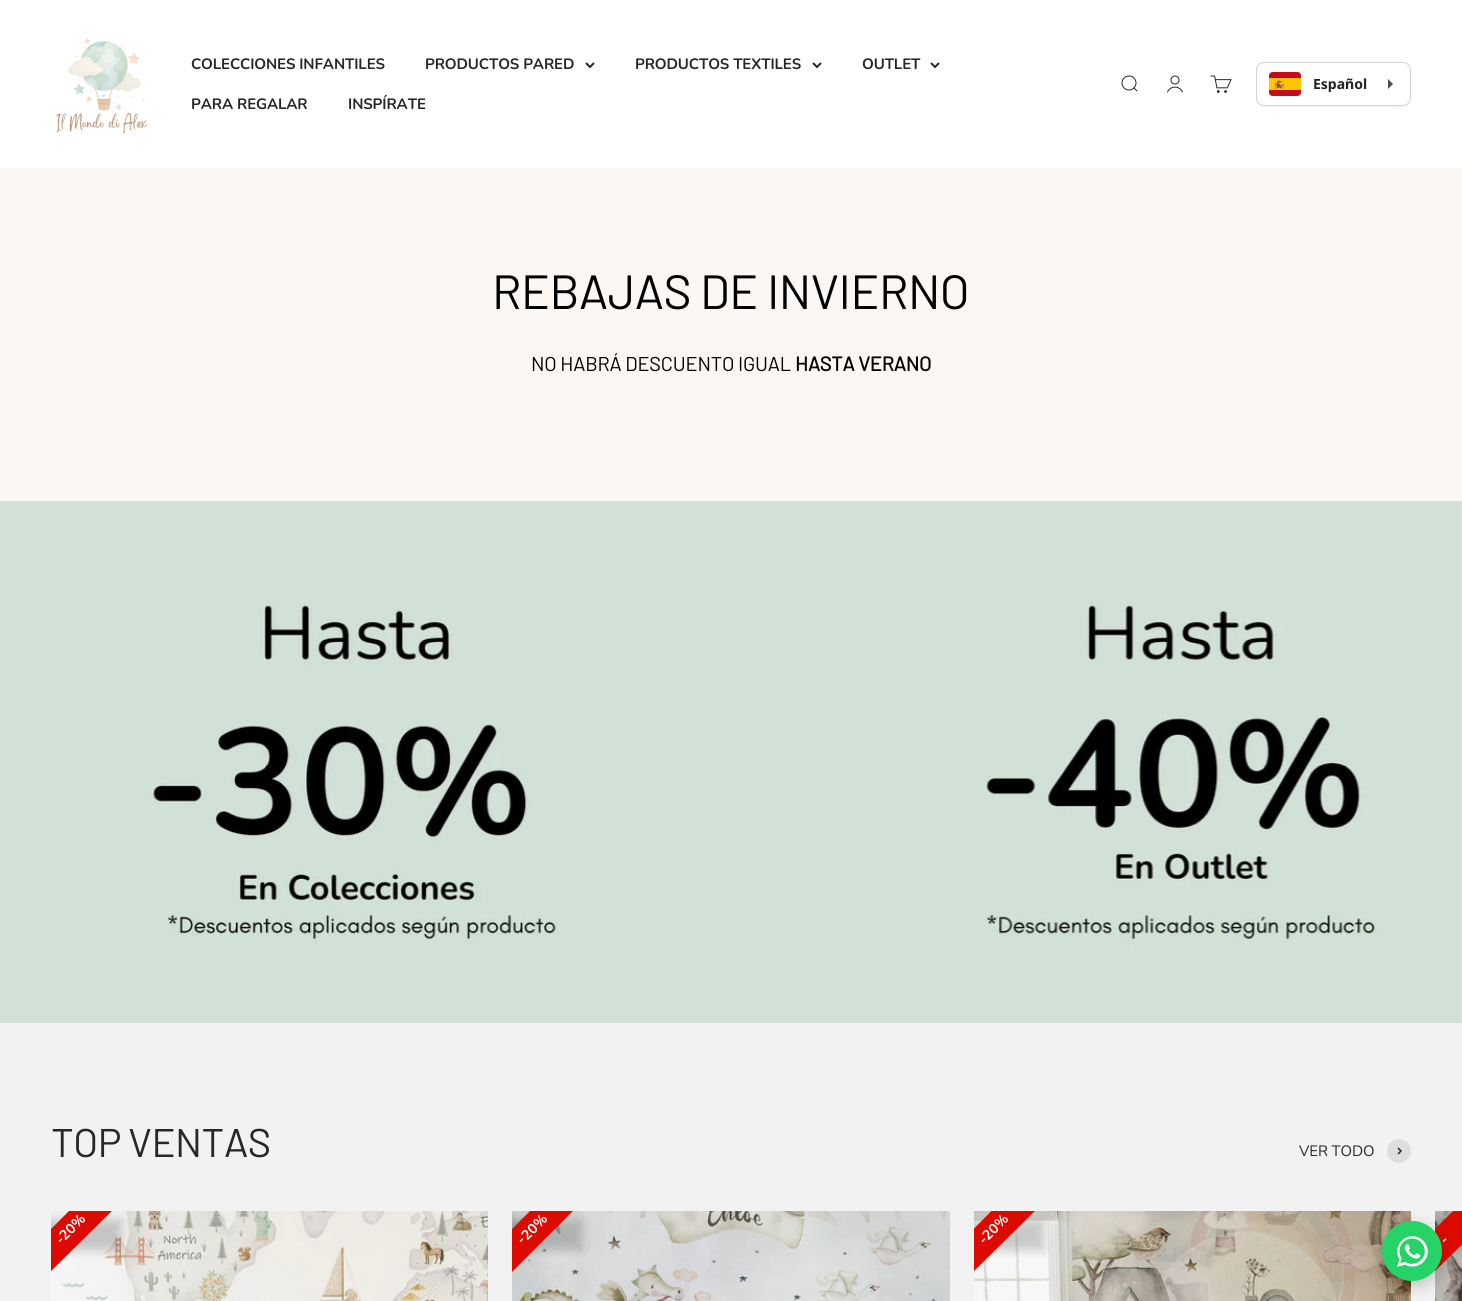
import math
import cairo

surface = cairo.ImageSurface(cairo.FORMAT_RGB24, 1462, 1301)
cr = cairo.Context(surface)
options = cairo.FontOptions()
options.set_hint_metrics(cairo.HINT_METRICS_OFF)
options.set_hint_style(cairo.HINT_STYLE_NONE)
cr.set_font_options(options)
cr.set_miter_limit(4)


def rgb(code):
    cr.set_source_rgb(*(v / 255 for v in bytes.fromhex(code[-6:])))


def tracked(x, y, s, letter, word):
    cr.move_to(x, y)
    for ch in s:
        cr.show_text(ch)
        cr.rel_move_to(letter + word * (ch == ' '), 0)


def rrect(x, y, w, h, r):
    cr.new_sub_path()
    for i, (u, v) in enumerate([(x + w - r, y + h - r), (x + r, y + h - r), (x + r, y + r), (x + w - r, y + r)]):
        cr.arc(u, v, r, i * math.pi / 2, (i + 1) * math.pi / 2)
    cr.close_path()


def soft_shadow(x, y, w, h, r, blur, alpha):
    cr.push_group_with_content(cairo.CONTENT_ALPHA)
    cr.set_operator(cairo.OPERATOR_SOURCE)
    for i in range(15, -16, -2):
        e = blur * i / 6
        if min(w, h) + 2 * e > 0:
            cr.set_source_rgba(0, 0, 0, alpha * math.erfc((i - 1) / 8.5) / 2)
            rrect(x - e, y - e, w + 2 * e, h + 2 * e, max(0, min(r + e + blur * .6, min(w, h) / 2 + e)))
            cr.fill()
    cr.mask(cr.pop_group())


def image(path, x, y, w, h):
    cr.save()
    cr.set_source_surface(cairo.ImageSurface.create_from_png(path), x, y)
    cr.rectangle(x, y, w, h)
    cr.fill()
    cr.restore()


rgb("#ffffff")
cr.paint()
image("img/1.png", 56, 38, 92, 96)
cr.new_path()
cr.move_to(586, 63)
cr.line_to(590, 67)
cr.line_to(594, 63)
rgb("#272727")
cr.stroke()
cr.new_path()
cr.move_to(813, 63)
cr.line_to(817, 67)
cr.line_to(821, 63)
cr.stroke()
cr.new_path()
cr.move_to(931, 63)
cr.line_to(935, 67)
cr.line_to(939, 63)
cr.stroke()
image("img/2.png", 1121, 75, 17, 17)
cr.arc(1175, 80, 4, 0, 2 * math.pi)
cr.set_line_width(1)
cr.stroke()
cr.new_path()
cr.move_to(1167.5, 92)
cr.curve_to(1170.5, 85.5, 1179.5, 85.5, 1182.5, 92)
cr.set_line_cap(cairo.LINE_CAP_ROUND)
cr.stroke()
image("img/3.png", 1210, 75, 22, 18)
rgb("#f7f7f7")
cr.new_path()
cr.move_to(1256, 98)
cr.curve_to(1256, 113, 1280, 107, 1287, 107)
cr.line_to(1380, 107)
cr.curve_to(1387, 107, 1411, 113, 1411, 98)
cr.curve_to(1411, 102, 1407, 106, 1403, 106)
cr.line_to(1264, 106)
cr.curve_to(1260, 106, 1256, 102, 1256, 98)
cr.close_path()
cr.fill()
rgb("#ffffff")
rrect(1256.5, 62.5, 154, 43, 7.5)
cr.fill_preserve()
rgb("#d2d3d3")
cr.set_line_cap(cairo.LINE_CAP_BUTT)
cr.stroke()
image("img/4.png", 1269, 72, 32, 24)
rgb("#4d4e4f")
cr.new_path()
cr.move_to(1388, 89)
cr.line_to(1388, 79)
cr.line_to(1393, 84)
cr.close_path()
cr.fill()
rgb("#faf7f4")
cr.rectangle(0, 168, 1462, 333)
cr.fill()
rgb("#f4eae0")
cr.rectangle(0, 501, 1462, 522)
cr.fill()
image("img/5.png", 0, 501, 1462, 522)
rgb("#f2f2f2")
cr.rectangle(0, 1023, 1462, 278)
cr.fill()
rgb("#dedede")
cr.arc(1399, 1151, 12, 0, 2 * math.pi)
cr.fill()
cr.new_path()
cr.move_to(1398, 1154)
cr.line_to(1401, 1151)
cr.line_to(1398, 1148)
rgb("#272727")
cr.set_line_width(1.5)
cr.stroke()
image("img/6.png", 51, 1211, 437, 90)
cr.save()
cr.rectangle(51, 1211, 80, 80)
cr.clip()
rgb("#000000")
soft_shadow(21, 1220, 100, 30, 0, 5, 0.1)
soft_shadow(21, 1220, 100, 30, 0, 5, 0.1)
cr.restore()
cr.save()
cr.rectangle(51, 1211, 80, 80)
cr.clip()
rgb("#dd0a02")
cr.new_path()
cr.move_to(25, 1255)
cr.line_to(96, 1184)
cr.line_to(117, 1206)
cr.line_to(46, 1276)
cr.close_path()
cr.fill()
cr.restore()
image("img/7.png", 512, 1211, 438, 90)
cr.save()
cr.rectangle(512, 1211, 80, 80)
cr.clip()
rgb("#000000")
soft_shadow(482, 1220, 100, 30, 0, 5, 0.1)
soft_shadow(482, 1220, 100, 30, 0, 5, 0.1)
cr.restore()
cr.save()
cr.rectangle(512, 1211, 80, 80)
cr.clip()
rgb("#dd0a02")
cr.new_path()
cr.move_to(486, 1255)
cr.line_to(557, 1184)
cr.line_to(578, 1206)
cr.line_to(508, 1276)
cr.close_path()
cr.fill()
cr.restore()
image("img/8.png", 974, 1211, 437, 90)
cr.save()
cr.rectangle(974, 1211, 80, 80)
cr.clip()
rgb("#000000")
soft_shadow(944, 1220, 100, 30, 0, 5, 0.1)
soft_shadow(944, 1220, 100, 30, 0, 5, 0.1)
cr.restore()
cr.save()
cr.rectangle(974, 1211, 80, 80)
cr.clip()
rgb("#dd0a02")
cr.new_path()
cr.move_to(948, 1255)
cr.line_to(1018, 1184)
cr.line_to(1040, 1206)
cr.line_to(969, 1276)
cr.close_path()
cr.fill()
cr.restore()
image("img/9.png", 1435, 1211, 27, 90)
cr.save()
cr.rectangle(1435, 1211, 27, 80)
cr.clip()
rgb("#000000")
soft_shadow(1405, 1220, 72, 30, 0, 5, 0.1)
soft_shadow(1405, 1220, 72, 30, 0, 5, 0.1)
cr.restore()
cr.save()
cr.rectangle(1435, 1211, 27, 80)
cr.clip()
rgb("#dd0a02")
cr.new_path()
cr.move_to(1409, 1255)
cr.line_to(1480, 1184)
cr.line_to(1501, 1206)
cr.line_to(1430, 1276)
cr.close_path()
cr.fill()
cr.restore()
rgb("#000000")
soft_shadow(1382, 1226, 60, 60, 30, 7.5, 0.2)
rgb("#25d366")
cr.arc(1412, 1251, 30, 0, 2 * math.pi)
cr.fill()
image("img/10.png", 1397, 1236, 31, 31)
cr.select_font_face("Nunito", cairo.FONT_SLANT_NORMAL, cairo.FONT_WEIGHT_BOLD)
cr.set_font_size(15)
rgb("#272727")
for x, y, s in [
    (191, 69, "COLECCIONES INFANTILES"),
    (425, 69, "PRODUCTOS PARED"),
    (635, 69, "PRODUCTOS TEXTILES"),
    (862, 69, "OUTLET"),
    (191, 109, "PARA REGALAR"),
    (348, 109, "INSPÍRATE"),
]:
    tracked(x, y, s, -0.1, 0)
cr.save()
cr.rectangle(1313, 76, 57, 16)
cr.clip()
cr.select_font_face("Noto Sans", cairo.FONT_SLANT_NORMAL, cairo.FONT_WEIGHT_BOLD)
cr.set_font_size(14)
rgb("#202223")
cr.move_to(1313, 89)
cr.show_text("Español")
cr.restore()
cr.select_font_face("Barlow")
cr.set_font_size(48)
rgb("#000000")
tracked(492, 309, "REBAJAS DE INVIERNO", -0.5, 0)
cr.set_font_size(20)
tracked(531, 371, "NO HABRÁ DESCUENTO IGUAL", -0.2, 0)
cr.select_font_face("Barlow", cairo.FONT_SLANT_NORMAL, cairo.FONT_WEIGHT_BOLD)
tracked(795, 371, "HASTA VERANO", -0.2, 0)
cr.select_font_face("Barlow")
cr.set_font_size(40)
rgb("#272727")
tracked(51, 1157, "TOP VENTAS", -0.5, 0)
cr.select_font_face("Nunito")
cr.set_font_size(15)
tracked(1299, 1156, "VER TODO", -0.1, 0)
cr.select_font_face("Nunito", cairo.FONT_SLANT_NORMAL, cairo.FONT_WEIGHT_BOLD)
cr.set_font_size(14)
rgb("#ffffff")
cr.save()
cr.translate(61, 1245)
cr.rotate(-45 * math.pi / 180)
cr.move_to(0, 0)
cr.show_text("-")
cr.restore()
cr.save()
cr.translate(65, 1241)
cr.rotate(-45 * math.pi / 180)
cr.move_to(0, 0)
cr.show_text("20%")
cr.restore()
cr.save()
cr.translate(522, 1245)
cr.rotate(-45 * math.pi / 180)
cr.move_to(0, 0)
cr.show_text("-")
cr.restore()
cr.save()
cr.translate(527, 1241)
cr.rotate(-45 * math.pi / 180)
cr.move_to(0, 0)
cr.show_text("20%")
cr.restore()
cr.save()
cr.translate(984, 1245)
cr.rotate(-45 * math.pi / 180)
cr.move_to(0, 0)
cr.show_text("-")
cr.restore()
cr.save()
cr.translate(988, 1241)
cr.rotate(-45 * math.pi / 180)
cr.move_to(0, 0)
cr.show_text("20%")
cr.restore()
cr.save()
cr.translate(1445, 1245)
cr.rotate(-45 * math.pi / 180)
cr.move_to(0, 0)
cr.show_text("-")
cr.restore()
surface.write_to_png("page.png")
